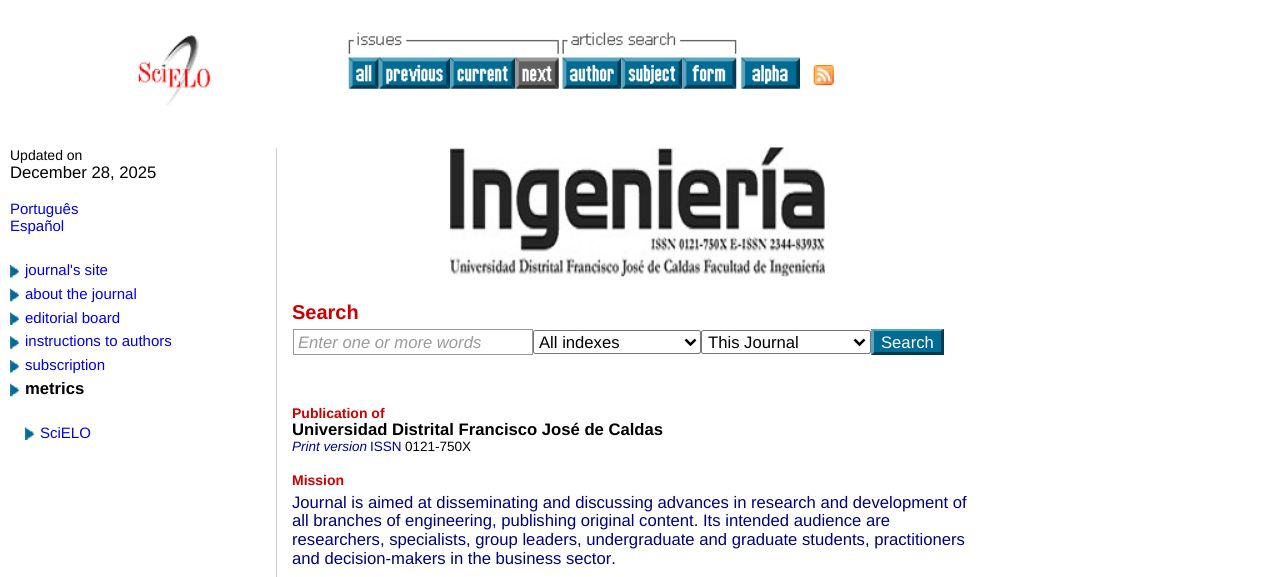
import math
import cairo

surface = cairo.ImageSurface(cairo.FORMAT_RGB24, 1274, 577)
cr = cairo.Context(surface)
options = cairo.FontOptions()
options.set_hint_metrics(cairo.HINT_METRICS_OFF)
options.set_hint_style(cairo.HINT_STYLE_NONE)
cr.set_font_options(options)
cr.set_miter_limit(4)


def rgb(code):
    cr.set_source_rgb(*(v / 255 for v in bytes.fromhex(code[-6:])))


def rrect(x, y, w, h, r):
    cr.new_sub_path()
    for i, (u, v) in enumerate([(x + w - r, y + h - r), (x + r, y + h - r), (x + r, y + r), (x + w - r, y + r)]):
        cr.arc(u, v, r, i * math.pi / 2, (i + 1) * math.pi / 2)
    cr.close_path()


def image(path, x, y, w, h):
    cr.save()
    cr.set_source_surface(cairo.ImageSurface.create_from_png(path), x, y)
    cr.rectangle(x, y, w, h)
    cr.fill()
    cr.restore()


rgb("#ffffff")
cr.paint()
image("img/1.png", 138, 35, 73, 71)
image("img/2.png", 348, 32, 211, 22)
image("img/3.png", 562, 32, 175, 22)
image("img/4.png", 348, 57, 31, 32)
image("img/5.png", 378, 57, 72, 32)
image("img/6.png", 450, 57, 65, 32)
image("img/7.png", 515, 57, 44, 32)
image("img/8.png", 562, 57, 60, 32)
image("img/9.png", 621, 57, 62, 32)
image("img/10.png", 682, 57, 55, 32)
image("img/11.png", 741, 57, 59, 32)
image("img/12.png", 813, 65, 21, 20)
image("img/13.png", 10, 265, 9, 13)
image("img/14.png", 10, 288, 9, 14)
image("img/15.png", 10, 312, 9, 13)
image("img/16.png", 10, 336, 9, 13)
image("img/13.png", 10, 360, 9, 13)
image("img/17.png", 10, 383, 9, 14)
image("img/18.png", 25, 427, 9, 13)
rgb("#cccccc")
cr.rectangle(276, 148, 1, 429)
cr.fill()
image("img/19.png", 450, 147, 375, 130)
cr.rectangle(293.5, 329.5, 239, 25)
rgb("#999999")
cr.set_line_width(1)
cr.stroke()
rrect(533.5, 330.5, 167, 23, 2)
rgb("#767676")
cr.stroke()
cr.new_path()
cr.move_to(685.5, 339.5)
cr.line_to(690.5, 344.5)
cr.line_to(695.5, 339.5)
rgb("#000000")
cr.set_line_width(2.5)
cr.stroke()
rrect(701.5, 330.5, 169, 23, 2)
rgb("#767676")
cr.set_line_width(1)
cr.stroke()
cr.new_path()
cr.move_to(854.5, 339.5)
cr.line_to(859.5, 344.5)
cr.line_to(864.5, 339.5)
rgb("#000000")
cr.set_line_width(2.5)
cr.stroke()
rgb("#006b94")
cr.rectangle(871, 329, 73, 26)
cr.fill()
rgb("#5aa5bd")
cr.new_path()
cr.move_to(871, 329)
cr.line_to(944, 329)
cr.line_to(941, 331)
cr.line_to(874, 331)
cr.close_path()
cr.fill()
rgb("#003952")
cr.new_path()
cr.move_to(944, 329)
cr.line_to(944, 355)
cr.line_to(941, 352.5)
cr.line_to(941, 331)
cr.close_path()
cr.fill()
cr.new_path()
cr.move_to(944, 355)
cr.line_to(871, 355)
cr.line_to(874, 352)
cr.line_to(941, 352)
cr.close_path()
cr.fill()
rgb("#5aa5bd")
cr.new_path()
cr.move_to(871, 355)
cr.line_to(871, 329)
cr.line_to(874, 331)
cr.line_to(874, 352.5)
cr.close_path()
cr.fill()
cr.select_font_face("Liberation Sans")
cr.set_font_size(14)
rgb("#000000")
cr.move_to(10, 160)
cr.show_text("Updated on")
cr.set_font_size(16.65)
cr.move_to(10, 178)
cr.show_text("December 28, 2025")
cr.set_font_size(15)
rgb("#0000ee")
for x, y, s in [
    (10, 214, "Português"),
    (10, 231, "Español"),
    (25, 275, "journal's site"),
    (25, 299, "about the journal"),
    (25, 323, "editorial board"),
    (25, 346, "instructions to authors"),
    (25, 370, "subscription"),
]:
    cr.move_to(x, y)
    cr.show_text(s)
cr.select_font_face("Liberation Sans", cairo.FONT_SLANT_NORMAL, cairo.FONT_WEIGHT_BOLD)
cr.set_font_size(16.65)
rgb("#000000")
cr.move_to(25, 394)
cr.show_text("metrics")
cr.select_font_face("Liberation Sans")
cr.set_font_size(15)
rgb("#0000ee")
cr.move_to(40, 438)
cr.show_text("SciELO")
cr.select_font_face("Liberation Sans", cairo.FONT_SLANT_NORMAL, cairo.FONT_WEIGHT_BOLD)
cr.set_font_size(20)
rgb("#cc0000")
cr.move_to(292, 319)
cr.show_text("Search")
cr.select_font_face("Liberation Sans", cairo.FONT_SLANT_ITALIC)
cr.set_font_size(16.65)
rgb("#999999")
cr.move_to(298, 348)
cr.show_text("Enter one or more words")
cr.select_font_face("Liberation Sans")
rgb("#000000")
cr.move_to(539, 348)
cr.show_text("All indexes")
cr.move_to(708, 348)
cr.show_text("This Journal")
rgb("#ffffff")
cr.move_to(881, 348)
cr.show_text("Search")
cr.select_font_face("Liberation Sans", cairo.FONT_SLANT_NORMAL, cairo.FONT_WEIGHT_BOLD)
cr.set_font_size(14)
rgb("#cc0000")
cr.move_to(292, 418)
cr.show_text("Publication of")
cr.set_font_size(16.65)
rgb("#000000")
cr.move_to(292, 435)
cr.show_text("Universidad Distrital Francisco José de Caldas")
cr.select_font_face("Liberation Sans", cairo.FONT_SLANT_ITALIC)
cr.set_font_size(13.5)
rgb("#0000a0")
cr.move_to(292, 451)
cr.show_text("Print version")
cr.select_font_face("Liberation Sans")
cr.move_to(370, 451)
cr.show_text("ISSN")
rgb("#000000")
cr.move_to(405, 451)
cr.show_text("0121-750X")
cr.select_font_face("Liberation Sans", cairo.FONT_SLANT_NORMAL, cairo.FONT_WEIGHT_BOLD)
cr.set_font_size(14)
rgb("#cc0000")
cr.move_to(292, 485)
cr.show_text("Mission")
cr.select_font_face("Liberation Sans")
cr.set_font_size(16.65)
rgb("#000080")
for x, y, s in [
    (292, 508, "Journal is aimed at disseminating and discussing advances in research and development of"),
    (292, 526, "all branches of engineering, publishing original content. Its intended audience are"),
    (292, 545, "researchers, specialists, group leaders, undergraduate and graduate students, practitioners"),
    (292, 564, "and decision-makers in the business sector."),
]:
    cr.move_to(x, y)
    cr.show_text(s)
surface.write_to_png("page.png")
